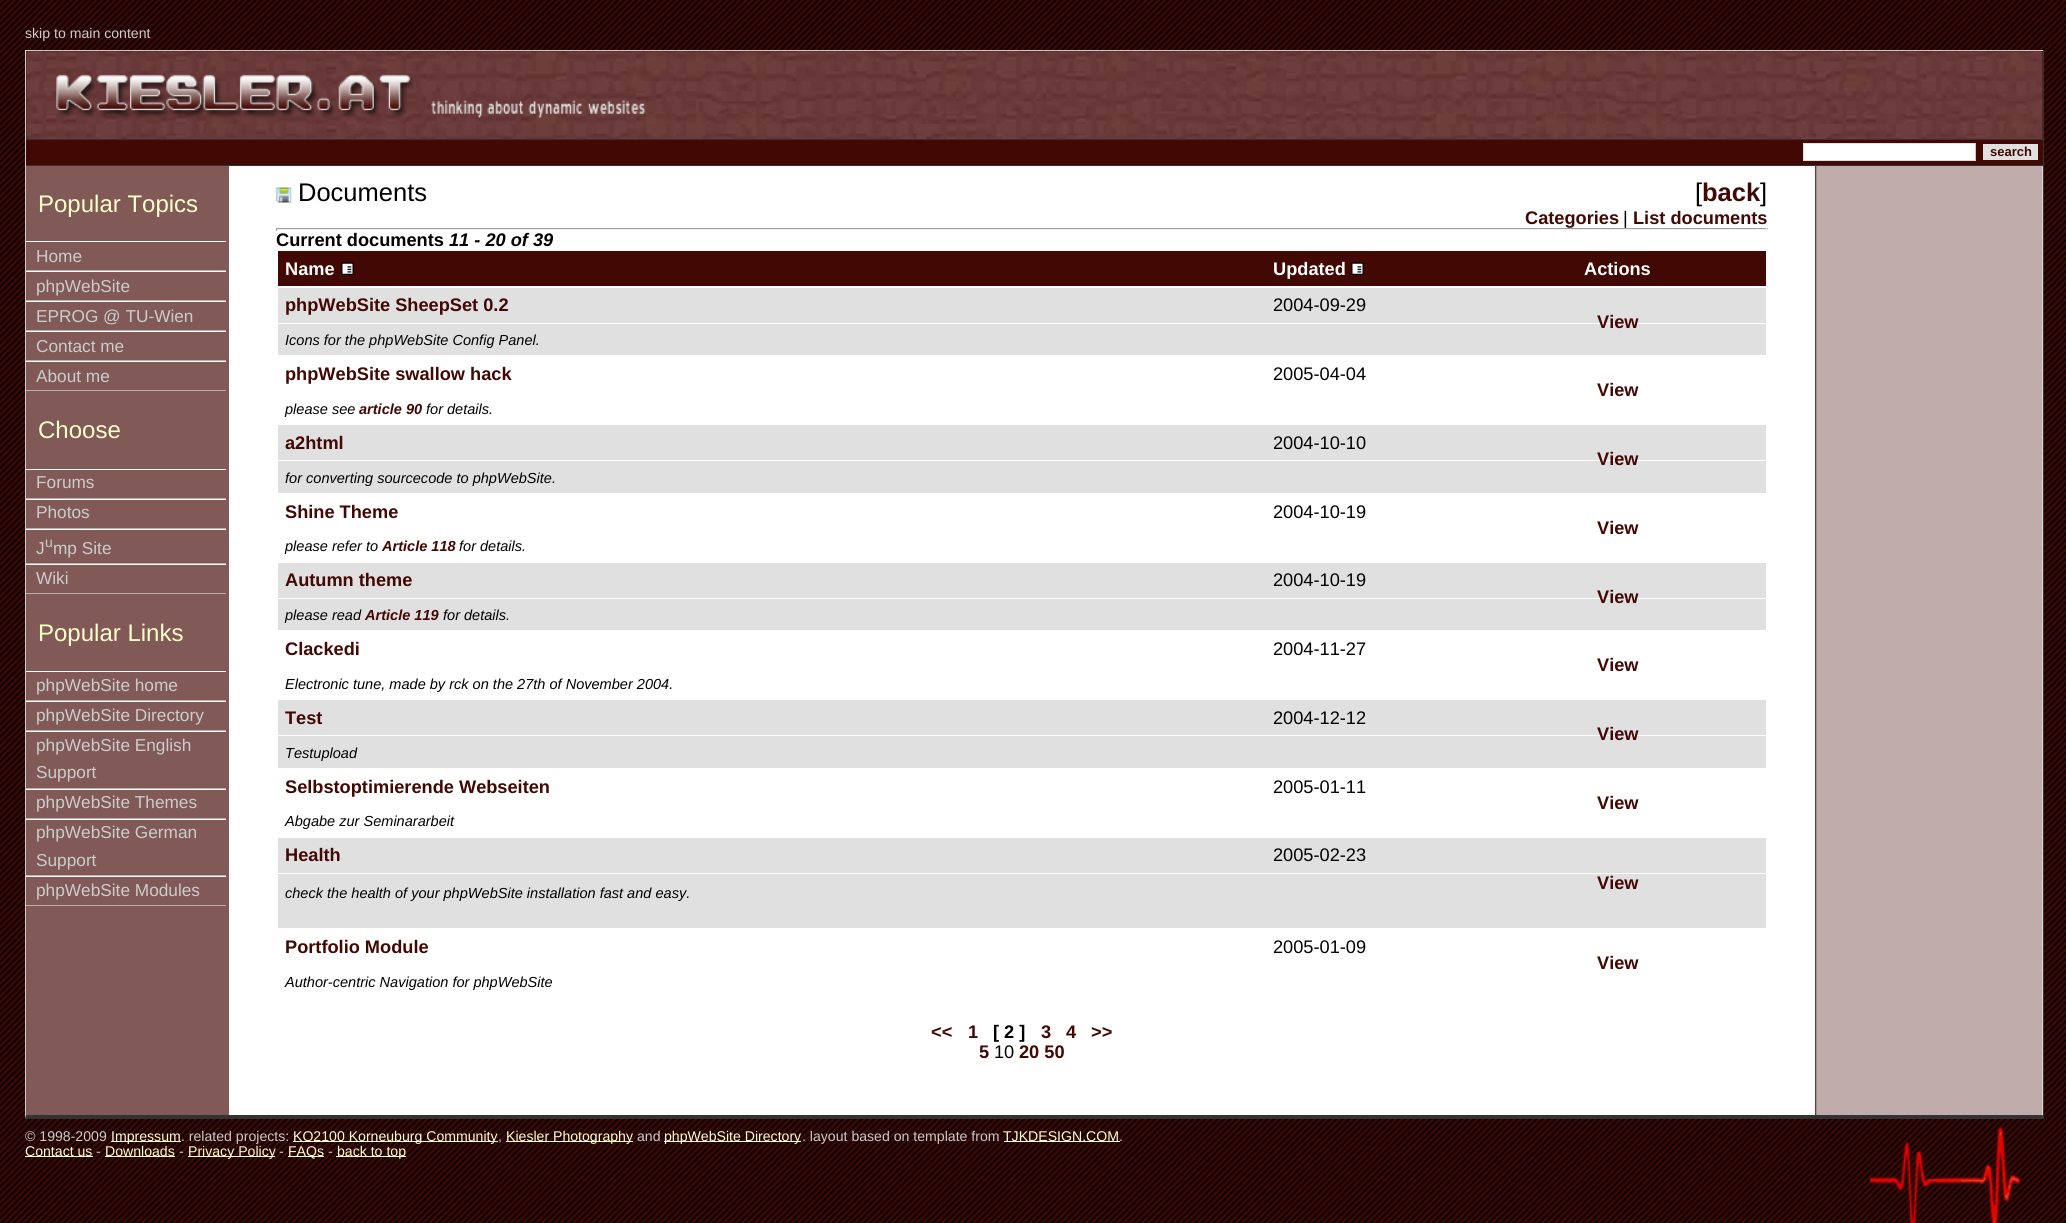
import math
import cairo

surface = cairo.ImageSurface(cairo.FORMAT_RGB24, 2066, 1223)
cr = cairo.Context(surface)
options = cairo.FontOptions()
options.set_hint_metrics(cairo.HINT_METRICS_OFF)
options.set_hint_style(cairo.HINT_STYLE_NONE)
cr.set_font_options(options)
cr.set_miter_limit(4)


def rgb(code):
    cr.set_source_rgb(*(v / 255 for v in bytes.fromhex(code[-6:])))


def image(path, x, y, w, h):
    cr.save()
    cr.set_source_surface(cairo.ImageSurface.create_from_png(path), x, y)
    cr.rectangle(x, y, w, h)
    cr.fill()
    cr.restore()


rgb("#ffffff")
cr.paint()
image("img/1.png", 0, 0, 2066, 1223)
rgb("#ffffff")
cr.rectangle(229, 166, 1814, 949)
cr.fill()
image("img/2.png", 1815, 166, 228, 951)
rgb("#cccccc")
cr.rectangle(25, 50, 2019, 1)
cr.fill()
rgb("#333333")
cr.rectangle(2043, 50, 1, 1069)
cr.fill()
cr.new_path()
cr.move_to(2044, 1119)
cr.line_to(25, 1119)
cr.line_to(26, 1115)
cr.line_to(2042, 1115)
cr.close_path()
cr.fill()
rgb("#cccccc")
cr.new_path()
cr.move_to(25, 1119)
cr.line_to(25, 50)
cr.line_to(26, 51)
cr.line_to(26, 1115)
cr.close_path()
cr.fill()
rgb("#420803")
cr.rectangle(26, 51, 2017, 88)
cr.fill()
image("img/3.png", 26, 51, 2017, 88)
rgb("#333333")
cr.rectangle(26, 139, 2017, 1)
cr.fill()
image("img/4.png", 56, 74, 590, 44)
for x, y, w, h, color in [
    (26, 140, 2017, 25, "#420803"),
    (26, 165, 2017, 1, "#333333"),
    (1804, 144, 171, 16, "#ffffff"),
    (1803, 143, 173, 1, "#e0e0e0"),
    (1975, 143, 1, 18, "#cccccc"),
    (1803, 160, 173, 1, "#e0e0e0"),
    (1803, 143, 1, 18, "#e0e0e0"),
    (1983, 144, 55, 16, "#e0e0e0"),
    (26, 166, 203, 949, "#815a57"),
    (26, 241, 200, 1, "#ffffff"),
    (26, 270, 200, 1, "#c0acab"),
    (26, 271, 200, 1, "#ffffff"),
    (26, 300, 200, 1, "#c0acab"),
    (26, 301, 200, 1, "#ffffff"),
    (26, 330, 200, 1, "#c0acab"),
    (26, 331, 200, 1, "#ffffff"),
    (26, 360, 200, 1, "#c0acab"),
    (26, 361, 200, 1, "#ffffff"),
    (26, 390, 200, 1, "#c0acab"),
    (26, 469, 200, 1, "#ffffff"),
    (26, 498, 200, 1, "#c0acab"),
    (26, 499, 200, 1, "#ffffff"),
    (26, 528, 200, 1, "#c0acab"),
    (26, 529, 200, 1, "#ffffff"),
    (26, 563, 200, 1, "#c0acab"),
    (26, 564, 200, 1, "#ffffff"),
    (26, 593, 200, 1, "#c0acab"),
    (26, 671, 200, 1, "#ffffff"),
    (26, 700, 200, 1, "#c0acab"),
    (26, 701, 200, 1, "#ffffff"),
    (26, 730, 200, 1, "#c0acab"),
    (26, 731, 200, 1, "#ffffff"),
    (26, 788, 200, 1, "#c0acab"),
    (26, 789, 200, 1, "#ffffff"),
    (26, 818, 200, 1, "#c0acab"),
    (26, 819, 200, 1, "#ffffff"),
    (26, 875, 200, 1, "#c0acab"),
    (26, 876, 200, 1, "#ffffff"),
    (26, 905, 200, 1, "#c0acab"),
]:
    rgb(color)
    cr.rectangle(x, y, w, h)
    cr.fill()
image("img/5.png", 276, 187, 16, 16)
for x, y, w, h, color in [
    (276, 228, 1492, 1, "#9f9f9f"),
    (1766, 228, 1, 3, "#eeeeee"),
    (276, 229, 1492, 1, "#eeeeee"),
    (276, 228, 1, 3, "#9f9f9f"),
    (278, 251, 1488, 35, "#420803"),
]:
    rgb(color)
    cr.rectangle(x, y, w, h)
    cr.fill()
image("img/6.png", 341, 262, 13, 13)
image("img/6.png", 1351, 262, 13, 13)
for x, y, w, h, color in [
    (278, 288, 1488, 35, "#e0e0e0"),
    (278, 324, 1488, 31, "#e0e0e0"),
    (278, 425, 1488, 35, "#e0e0e0"),
    (278, 461, 1488, 32, "#e0e0e0"),
    (278, 563, 1488, 35, "#e0e0e0"),
    (278, 599, 1488, 31, "#e0e0e0"),
    (278, 700, 1488, 35, "#e0e0e0"),
    (278, 736, 1488, 32, "#e0e0e0"),
    (278, 838, 1488, 35, "#e0e0e0"),
    (278, 874, 1488, 54, "#e0e0e0"),
    (111, 1141, 70, 1, "#ffffcc"),
    (293, 1141, 205, 1, "#ffffcc"),
    (506, 1141, 127, 1, "#ffffcc"),
    (664, 1141, 137, 1, "#ffffcc"),
    (1004, 1141, 116, 1, "#ffffcc"),
    (25, 1156, 68, 1, "#ffffcc"),
    (105, 1156, 70, 1, "#ffffcc"),
    (188, 1156, 87, 1, "#ffffcc"),
    (288, 1156, 36, 1, "#ffffcc"),
    (336, 1156, 70, 1, "#ffffcc"),
]:
    rgb(color)
    cr.rectangle(x, y, w, h)
    cr.fill()
image("img/7.png", 1870, 1127, 152, 96)
cr.select_font_face("Liberation Sans")
cr.set_font_size(14.1)
rgb("#cccccc")
cr.move_to(25, 38)
cr.show_text("skip to main content")
cr.select_font_face("Liberation Sans", cairo.FONT_SLANT_NORMAL, cairo.FONT_WEIGHT_BOLD)
cr.set_font_size(13)
rgb("#420803")
cr.move_to(1990, 156)
cr.show_text("search")
cr.select_font_face("Liberation Sans")
cr.set_font_size(24)
rgb("#ffffcc")
cr.move_to(38, 212)
cr.show_text("Popular Topics")
cr.set_font_size(17.25)
rgb("#cccccc")
for x, y, s in [
    (36, 262, "Home"),
    (36, 292, "phpWebSite"),
    (36, 322, "EPROG @ TU-Wien"),
    (36, 352, "Contact me"),
    (36, 382, "About me"),
]:
    cr.move_to(x, y)
    cr.show_text(s)
cr.set_font_size(24)
rgb("#ffffcc")
cr.move_to(38, 438)
cr.show_text("Choose")
cr.set_font_size(17.25)
rgb("#cccccc")
for x, y, s in [
    (36, 488, "Forums"),
    (36, 518, "Photos"),
    (36, 554, "J"),
]:
    cr.move_to(x, y)
    cr.show_text(s)
cr.set_font_size(14)
cr.move_to(45, 547)
cr.show_text("u")
cr.set_font_size(17.25)
cr.move_to(53, 554)
cr.show_text("mp Site")
cr.move_to(36, 584)
cr.show_text("Wiki")
cr.set_font_size(24)
rgb("#ffffcc")
cr.move_to(38, 641)
cr.show_text("Popular Links")
cr.set_font_size(17.25)
rgb("#cccccc")
for x, y, s in [
    (36, 691, "phpWebSite home"),
    (36, 721, "phpWebSite Directory"),
    (36, 751, "phpWebSite English"),
    (36, 778, "Support"),
    (36, 808, "phpWebSite Themes"),
    (36, 838, "phpWebSite German"),
    (36, 866, "Support"),
    (36, 896, "phpWebSite Modules"),
]:
    cr.move_to(x, y)
    cr.show_text(s)
cr.set_font_size(25.5)
rgb("#000000")
cr.move_to(298, 201)
cr.show_text("Documents")
cr.move_to(1695, 201)
cr.show_text("[")
cr.select_font_face("Liberation Sans", cairo.FONT_SLANT_NORMAL, cairo.FONT_WEIGHT_BOLD)
rgb("#420803")
cr.move_to(1702, 201)
cr.show_text("back")
cr.select_font_face("Liberation Sans")
rgb("#000000")
cr.move_to(1760, 201)
cr.show_text("]")
cr.select_font_face("Liberation Sans", cairo.FONT_SLANT_NORMAL, cairo.FONT_WEIGHT_BOLD)
cr.set_font_size(18.2)
rgb("#420803")
cr.move_to(1525, 224)
cr.show_text("Categories")
cr.select_font_face("Liberation Sans")
rgb("#000000")
cr.move_to(1623, 224)
cr.show_text("|")
cr.select_font_face("Liberation Sans", cairo.FONT_SLANT_NORMAL, cairo.FONT_WEIGHT_BOLD)
rgb("#420803")
cr.move_to(1633, 224)
cr.show_text("List documents")
rgb("#000000")
cr.move_to(276, 246)
cr.show_text("Current documents")
cr.select_font_face("Liberation Sans", cairo.FONT_SLANT_ITALIC, cairo.FONT_WEIGHT_BOLD)
cr.move_to(449, 246)
cr.show_text("11 - 20 of 39")
cr.select_font_face("Liberation Sans", cairo.FONT_SLANT_NORMAL, cairo.FONT_WEIGHT_BOLD)
rgb("#ffffff")
for x, y, s in [
    (285, 275, "Name"),
    (1273, 275, "Updated"),
    (1584, 275, "Actions"),
]:
    cr.move_to(x, y)
    cr.show_text(s)
rgb("#420803")
cr.move_to(285, 311)
cr.show_text("phpWebSite SheepSet 0.2")
cr.select_font_face("Liberation Sans")
rgb("#000000")
cr.move_to(1273, 311)
cr.show_text("2004-09-29")
cr.select_font_face("Liberation Sans", cairo.FONT_SLANT_NORMAL, cairo.FONT_WEIGHT_BOLD)
rgb("#420803")
cr.move_to(1597, 328)
cr.show_text("View")
cr.select_font_face("Liberation Sans", cairo.FONT_SLANT_ITALIC)
cr.set_font_size(14.55)
rgb("#000000")
cr.move_to(285, 345)
cr.show_text("Icons for the phpWebSite Config Panel.")
cr.select_font_face("Liberation Sans", cairo.FONT_SLANT_NORMAL, cairo.FONT_WEIGHT_BOLD)
cr.set_font_size(18.2)
rgb("#420803")
cr.move_to(285, 380)
cr.show_text("phpWebSite swallow hack")
cr.select_font_face("Liberation Sans")
rgb("#000000")
cr.move_to(1273, 380)
cr.show_text("2005-04-04")
cr.select_font_face("Liberation Sans", cairo.FONT_SLANT_NORMAL, cairo.FONT_WEIGHT_BOLD)
rgb("#420803")
cr.move_to(1597, 396)
cr.show_text("View")
cr.select_font_face("Liberation Sans", cairo.FONT_SLANT_ITALIC)
cr.set_font_size(14.55)
rgb("#000000")
cr.move_to(285, 414)
cr.show_text("please see")
cr.select_font_face("Liberation Sans", cairo.FONT_SLANT_ITALIC, cairo.FONT_WEIGHT_BOLD)
rgb("#420803")
cr.move_to(359, 414)
cr.show_text("article 90")
cr.select_font_face("Liberation Sans", cairo.FONT_SLANT_ITALIC)
rgb("#000000")
cr.move_to(426, 414)
cr.show_text("for details.")
cr.select_font_face("Liberation Sans", cairo.FONT_SLANT_NORMAL, cairo.FONT_WEIGHT_BOLD)
cr.set_font_size(18.2)
rgb("#420803")
cr.move_to(285, 449)
cr.show_text("a2html")
cr.select_font_face("Liberation Sans")
rgb("#000000")
cr.move_to(1273, 449)
cr.show_text("2004-10-10")
cr.select_font_face("Liberation Sans", cairo.FONT_SLANT_NORMAL, cairo.FONT_WEIGHT_BOLD)
rgb("#420803")
cr.move_to(1597, 465)
cr.show_text("View")
cr.select_font_face("Liberation Sans", cairo.FONT_SLANT_ITALIC)
cr.set_font_size(14.55)
rgb("#000000")
cr.move_to(285, 483)
cr.show_text("for converting sourcecode to phpWebSite.")
cr.select_font_face("Liberation Sans", cairo.FONT_SLANT_NORMAL, cairo.FONT_WEIGHT_BOLD)
cr.set_font_size(18.2)
rgb("#420803")
cr.move_to(285, 518)
cr.show_text("Shine Theme")
cr.select_font_face("Liberation Sans")
rgb("#000000")
cr.move_to(1273, 518)
cr.show_text("2004-10-19")
cr.select_font_face("Liberation Sans", cairo.FONT_SLANT_NORMAL, cairo.FONT_WEIGHT_BOLD)
rgb("#420803")
cr.move_to(1597, 534)
cr.show_text("View")
cr.select_font_face("Liberation Sans", cairo.FONT_SLANT_ITALIC)
cr.set_font_size(14.55)
rgb("#000000")
cr.move_to(285, 551)
cr.show_text("please refer to")
cr.select_font_face("Liberation Sans", cairo.FONT_SLANT_ITALIC, cairo.FONT_WEIGHT_BOLD)
rgb("#420803")
cr.move_to(382, 551)
cr.show_text("Article 118")
cr.select_font_face("Liberation Sans", cairo.FONT_SLANT_ITALIC)
rgb("#000000")
cr.move_to(459, 551)
cr.show_text("for details.")
cr.select_font_face("Liberation Sans", cairo.FONT_SLANT_NORMAL, cairo.FONT_WEIGHT_BOLD)
cr.set_font_size(18.2)
rgb("#420803")
cr.move_to(285, 586)
cr.show_text("Autumn theme")
cr.select_font_face("Liberation Sans")
rgb("#000000")
cr.move_to(1273, 586)
cr.show_text("2004-10-19")
cr.select_font_face("Liberation Sans", cairo.FONT_SLANT_NORMAL, cairo.FONT_WEIGHT_BOLD)
rgb("#420803")
cr.move_to(1597, 603)
cr.show_text("View")
cr.select_font_face("Liberation Sans", cairo.FONT_SLANT_ITALIC)
cr.set_font_size(14.55)
rgb("#000000")
cr.move_to(285, 620)
cr.show_text("please read")
cr.select_font_face("Liberation Sans", cairo.FONT_SLANT_ITALIC, cairo.FONT_WEIGHT_BOLD)
rgb("#420803")
cr.move_to(365, 620)
cr.show_text("Article 119")
cr.select_font_face("Liberation Sans", cairo.FONT_SLANT_ITALIC)
rgb("#000000")
cr.move_to(443, 620)
cr.show_text("for details.")
cr.select_font_face("Liberation Sans", cairo.FONT_SLANT_NORMAL, cairo.FONT_WEIGHT_BOLD)
cr.set_font_size(18.2)
rgb("#420803")
cr.move_to(285, 655)
cr.show_text("Clackedi")
cr.select_font_face("Liberation Sans")
rgb("#000000")
cr.move_to(1273, 655)
cr.show_text("2004-11-27")
cr.select_font_face("Liberation Sans", cairo.FONT_SLANT_NORMAL, cairo.FONT_WEIGHT_BOLD)
rgb("#420803")
cr.move_to(1597, 671)
cr.show_text("View")
cr.select_font_face("Liberation Sans", cairo.FONT_SLANT_ITALIC)
cr.set_font_size(14.55)
rgb("#000000")
cr.move_to(285, 689)
cr.show_text("Electronic tune, made by rck on the 27th of November 2004.")
cr.select_font_face("Liberation Sans", cairo.FONT_SLANT_NORMAL, cairo.FONT_WEIGHT_BOLD)
cr.set_font_size(18.2)
rgb("#420803")
cr.move_to(285, 724)
cr.show_text("Test")
cr.select_font_face("Liberation Sans")
rgb("#000000")
cr.move_to(1273, 724)
cr.show_text("2004-12-12")
cr.select_font_face("Liberation Sans", cairo.FONT_SLANT_NORMAL, cairo.FONT_WEIGHT_BOLD)
rgb("#420803")
cr.move_to(1597, 740)
cr.show_text("View")
cr.select_font_face("Liberation Sans", cairo.FONT_SLANT_ITALIC)
cr.set_font_size(14.55)
rgb("#000000")
cr.move_to(285, 758)
cr.show_text("Testupload")
cr.select_font_face("Liberation Sans", cairo.FONT_SLANT_NORMAL, cairo.FONT_WEIGHT_BOLD)
cr.set_font_size(18.2)
rgb("#420803")
cr.move_to(285, 793)
cr.show_text("Selbstoptimierende Webseiten")
cr.select_font_face("Liberation Sans")
rgb("#000000")
cr.move_to(1273, 793)
cr.show_text("2005-01-11")
cr.select_font_face("Liberation Sans", cairo.FONT_SLANT_NORMAL, cairo.FONT_WEIGHT_BOLD)
rgb("#420803")
cr.move_to(1597, 809)
cr.show_text("View")
cr.select_font_face("Liberation Sans", cairo.FONT_SLANT_ITALIC)
cr.set_font_size(14.55)
rgb("#000000")
cr.move_to(285, 826)
cr.show_text("Abgabe zur Seminararbeit")
cr.select_font_face("Liberation Sans", cairo.FONT_SLANT_NORMAL, cairo.FONT_WEIGHT_BOLD)
cr.set_font_size(18.2)
rgb("#420803")
cr.move_to(285, 861)
cr.show_text("Health")
cr.select_font_face("Liberation Sans")
rgb("#000000")
cr.move_to(1273, 861)
cr.show_text("2005-02-23")
cr.select_font_face("Liberation Sans", cairo.FONT_SLANT_NORMAL, cairo.FONT_WEIGHT_BOLD)
rgb("#420803")
cr.move_to(1597, 889)
cr.show_text("View")
cr.select_font_face("Liberation Sans", cairo.FONT_SLANT_ITALIC)
cr.set_font_size(14.55)
rgb("#000000")
cr.move_to(285, 898)
cr.show_text("check the health of your phpWebSite installation fast and easy.")
cr.select_font_face("Liberation Sans", cairo.FONT_SLANT_NORMAL, cairo.FONT_WEIGHT_BOLD)
cr.set_font_size(18.2)
rgb("#420803")
cr.move_to(285, 953)
cr.show_text("Portfolio Module")
cr.select_font_face("Liberation Sans")
rgb("#000000")
cr.move_to(1273, 953)
cr.show_text("2005-01-09")
cr.select_font_face("Liberation Sans", cairo.FONT_SLANT_NORMAL, cairo.FONT_WEIGHT_BOLD)
rgb("#420803")
cr.move_to(1597, 969)
cr.show_text("View")
cr.select_font_face("Liberation Sans", cairo.FONT_SLANT_ITALIC)
cr.set_font_size(14.55)
rgb("#000000")
cr.move_to(285, 987)
cr.show_text("Author-centric Navigation for phpWebSite")
cr.select_font_face("Liberation Sans", cairo.FONT_SLANT_NORMAL, cairo.FONT_WEIGHT_BOLD)
cr.set_font_size(18.2)
rgb("#420803")
cr.move_to(931, 1038)
cr.show_text("<<")
cr.move_to(968, 1038)
cr.show_text("1")
rgb("#000000")
cr.move_to(993, 1038)
cr.show_text("[ 2 ]")
rgb("#420803")
for x, y, s in [
    (1041, 1038, "3"),
    (1066, 1038, "4"),
    (1091, 1038, ">>"),
    (979, 1058, "5"),
]:
    cr.move_to(x, y)
    cr.show_text(s)
cr.select_font_face("Liberation Sans")
rgb("#000000")
cr.move_to(994, 1058)
cr.show_text("10")
cr.select_font_face("Liberation Sans", cairo.FONT_SLANT_NORMAL, cairo.FONT_WEIGHT_BOLD)
rgb("#420803")
cr.move_to(1019, 1058)
cr.show_text("20 50")
cr.select_font_face("Liberation Sans")
cr.set_font_size(14.1)
rgb("#cccccc")
cr.move_to(25, 1141)
cr.show_text("© 1998-2009")
rgb("#ffffcc")
cr.move_to(111, 1141)
cr.show_text("Impressum")
rgb("#cccccc")
cr.move_to(181, 1141)
cr.show_text(". related projects:")
rgb("#ffffcc")
cr.move_to(293, 1141)
cr.show_text("KO2100 Korneuburg Community")
rgb("#cccccc")
cr.move_to(498, 1141)
cr.show_text(",")
rgb("#ffffcc")
cr.move_to(506, 1141)
cr.show_text("Kiesler Photography")
rgb("#cccccc")
cr.move_to(637, 1141)
cr.show_text("and")
rgb("#ffffcc")
cr.move_to(664, 1141)
cr.show_text("phpWebSite Directory")
rgb("#cccccc")
cr.move_to(802, 1141)
cr.show_text(". layout based on template from")
rgb("#ffffcc")
cr.move_to(1003, 1141)
cr.show_text("TJKDESIGN.COM")
rgb("#cccccc")
cr.move_to(1119, 1141)
cr.show_text(".")
rgb("#ffffcc")
cr.move_to(25, 1156)
cr.show_text("Contact us")
rgb("#cccccc")
cr.move_to(96, 1156)
cr.show_text("-")
rgb("#ffffcc")
cr.move_to(105, 1156)
cr.show_text("Downloads")
rgb("#cccccc")
cr.move_to(179, 1156)
cr.show_text("-")
rgb("#ffffcc")
cr.move_to(188, 1156)
cr.show_text("Privacy Policy")
rgb("#cccccc")
cr.move_to(279, 1156)
cr.show_text("-")
rgb("#ffffcc")
cr.move_to(288, 1156)
cr.show_text("FAQs")
rgb("#cccccc")
cr.move_to(328, 1156)
cr.show_text("-")
rgb("#ffffcc")
cr.move_to(337, 1156)
cr.show_text("back to top")
surface.write_to_png("page.png")
